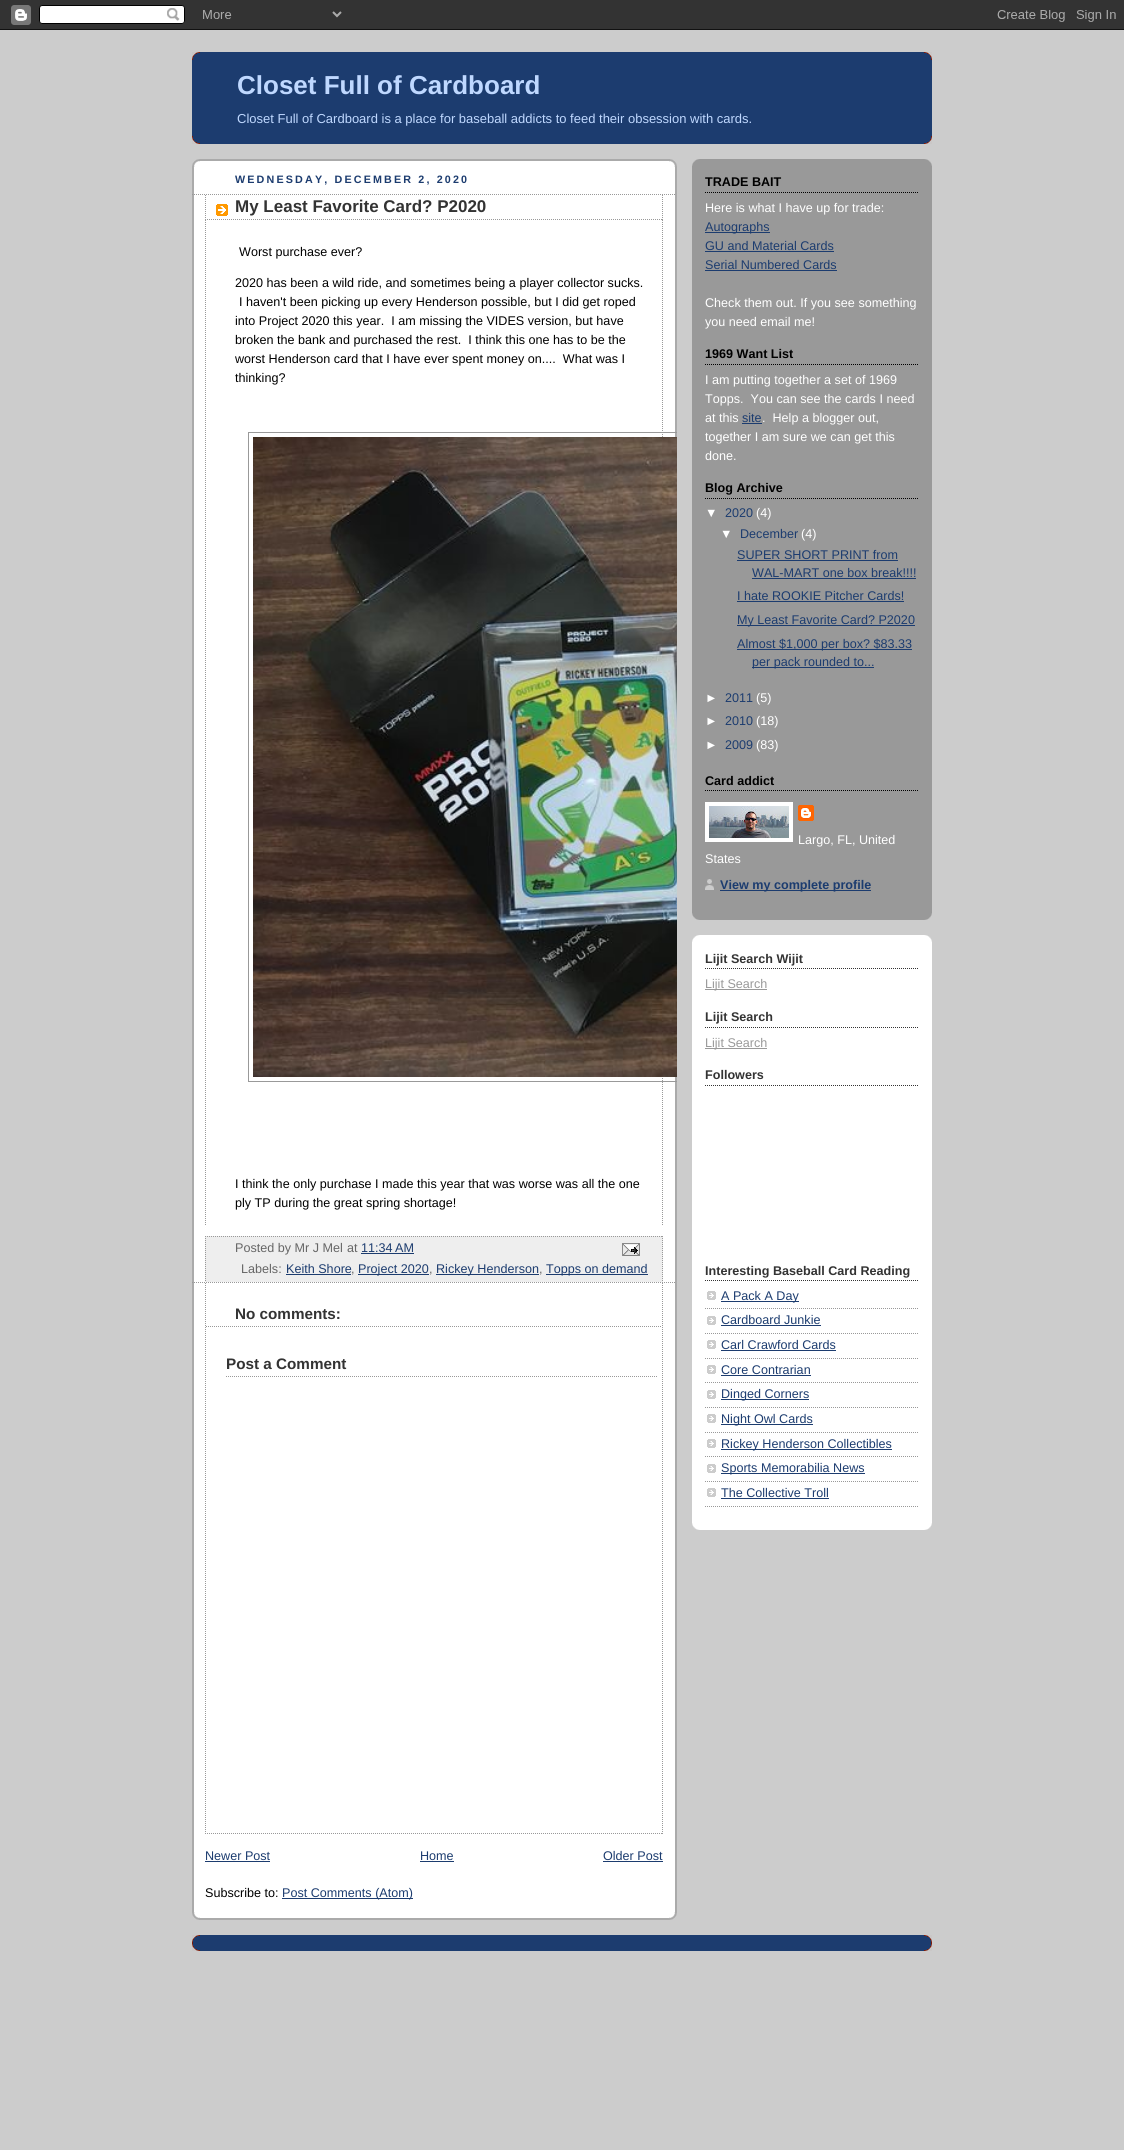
import math
import cairo

surface = cairo.ImageSurface(cairo.FORMAT_RGB24, 1124, 2150)
cr = cairo.Context(surface)
options = cairo.FontOptions()
options.set_hint_metrics(cairo.HINT_METRICS_OFF)
options.set_hint_style(cairo.HINT_STYLE_NONE)
cr.set_font_options(options)
cr.set_miter_limit(4)


def rgb(code):
    cr.set_source_rgb(*(v / 255 for v in bytes.fromhex(code[-6:])))


def tracked(x, y, s, letter, word):
    cr.move_to(x, y)
    for ch in s:
        cr.show_text(ch)
        cr.rel_move_to(letter + word * (ch == ' '), 0)


def image(path, x, y, w, h):
    cr.save()
    cr.set_source_surface(cairo.ImageSurface.create_from_png(path), x, y)
    cr.rectangle(x, y, w, h)
    cr.fill()
    cr.restore()


rgb("#cccccc")
cr.paint()
image("img/1.png", 0, 0, 1124, 30)
rgb("#1c3c6f")
cr.rectangle(192, 52, 740, 92)
cr.fill()
image("img/2.png", 192, 52, 740, 8)
image("img/3.png", 192, 136, 740, 8)
rgb("#ffffff")
cr.rectangle(194, 161, 481, 1757)
cr.fill()
image("img/4.png", 192, 1870, 485, 50)
image("img/5.png", 192, 159, 485, 50)
image("img/6.png", 192, 209, 485, 1661)
cr.new_path()
cr.move_to(192, 194.5)
cr.line_to(676, 194.5)
rgb("#999999")
cr.set_line_width(1)
cr.set_dash([1, 1])
cr.stroke()
cr.new_path()
cr.move_to(192, 1282.5)
cr.line_to(676, 1282.5)
cr.stroke()
image("img/7.png", 216, 204, 12, 12)
cr.new_path()
cr.move_to(662.5, 195)
cr.line_to(662.5, 220)
cr.stroke()
cr.new_path()
cr.move_to(205, 219.5)
cr.line_to(663, 219.5)
cr.stroke()
cr.new_path()
cr.move_to(205.5, 195)
cr.line_to(205.5, 220)
cr.stroke()
cr.new_path()
cr.move_to(662.5, 220)
cr.line_to(662.5, 1226)
cr.stroke()
cr.new_path()
cr.move_to(205.5, 220)
cr.line_to(205.5, 1226)
cr.stroke()
cr.save()
cr.rectangle(192, 159, 485, 1761)
cr.clip()
cr.rectangle(248.5, 432.5, 649, 649)
cr.set_dash([])
cr.stroke()
cr.restore()
image("img/8.png", 253, 437, 424, 640)
rgb("#eeeeee")
cr.rectangle(205, 1236, 458, 46)
cr.fill()
cr.new_path()
cr.move_to(205, 1236.5)
cr.line_to(663, 1236.5)
rgb("#999999")
cr.stroke()
cr.new_path()
cr.move_to(662.5, 1236)
cr.line_to(662.5, 1282)
cr.stroke()
cr.new_path()
cr.move_to(205.5, 1236)
cr.line_to(205.5, 1282)
cr.stroke()
rgb("#1c3c6f")
cr.rectangle(361, 1253, 53, 1)
cr.fill()
image("img/9.png", 622, 1243, 18, 13)
for x, y, w, h, color in [
    (286, 1274, 65, 1, "#1c3c6f"),
    (358, 1274, 71, 1, "#1c3c6f"),
    (436, 1274, 103, 1, "#1c3c6f"),
    (546, 1274, 102, 1, "#1c3c6f"),
]:
    rgb(color)
    cr.rectangle(x, y, w, h)
    cr.fill()
cr.new_path()
cr.move_to(662.5, 1283)
cr.line_to(662.5, 1834)
rgb("#999999")
cr.stroke()
cr.new_path()
cr.move_to(205, 1833.5)
cr.line_to(663, 1833.5)
cr.stroke()
cr.new_path()
cr.move_to(205.5, 1283)
cr.line_to(205.5, 1834)
cr.stroke()
cr.new_path()
cr.move_to(206, 1326.5)
cr.line_to(662, 1326.5)
cr.stroke()
cr.new_path()
cr.move_to(226, 1376.5)
cr.line_to(657, 1376.5)
cr.stroke()
for x, y, w, h, color in [
    (205, 1861, 65, 1, "#1c3c6f"),
    (420, 1861, 34, 1, "#1c3c6f"),
    (603, 1861, 60, 1, "#1c3c6f"),
    (282, 1898, 131, 1, "#1c3c6f"),
    (692, 159, 240, 761, "#999999"),
]:
    rgb(color)
    cr.rectangle(x, y, w, h)
    cr.fill()
image("img/10.png", 692, 913, 240, 7)
image("img/11.png", 692, 159, 240, 7)
cr.new_path()
cr.move_to(705, 192.5)
cr.line_to(919, 192.5)
rgb("#000000")
cr.stroke()
for x, y, w, h, color in [
    (705, 232, 65, 1, "#1c3c6f"),
    (705, 251, 129, 1, "#1c3c6f"),
    (705, 270, 132, 1, "#1c3c6f"),
]:
    rgb(color)
    cr.rectangle(x, y, w, h)
    cr.fill()
cr.new_path()
cr.move_to(705, 364.5)
cr.line_to(919, 364.5)
rgb("#000000")
cr.stroke()
rgb("#1c3c6f")
cr.rectangle(742, 423, 20, 1)
cr.fill()
cr.new_path()
cr.move_to(705, 498.5)
cr.line_to(919, 498.5)
rgb("#000000")
cr.stroke()
for x, y, w, h, color in [
    (737, 560, 161, 1, "#1c3c6f"),
    (752, 578, 164, 1, "#1c3c6f"),
    (737, 601, 167, 1, "#1c3c6f"),
    (737, 625, 178, 1, "#1c3c6f"),
    (737, 649, 175, 1, "#1c3c6f"),
    (752, 667, 122, 1, "#1c3c6f"),
]:
    rgb(color)
    cr.rectangle(x, y, w, h)
    cr.fill()
cr.new_path()
cr.move_to(705, 790.5)
cr.line_to(919, 790.5)
rgb("#000000")
cr.stroke()
cr.rectangle(707, 804, 84, 36)
rgb("#ffffff")
cr.set_line_width(4)
cr.set_dash([])
cr.stroke()
image("img/12.png", 709, 806, 80, 32)
image("img/13.png", 798, 805, 16, 16)
image("img/14.png", 705, 879, 9, 11)
rgb("#1c3c6f")
cr.rectangle(720, 890, 151, 1)
cr.fill()
rgb("#ffffff")
cr.rectangle(692, 935, 240, 595)
cr.fill()
image("img/15.png", 692, 935, 240, 7)
image("img/16.png", 692, 1523, 240, 7)
cr.new_path()
cr.move_to(705, 968.5)
cr.line_to(919, 968.5)
rgb("#333333")
cr.set_line_width(1)
cr.set_dash([1, 1])
cr.stroke()
rgb("#999999")
cr.rectangle(705, 989, 62, 1)
cr.fill()
cr.new_path()
cr.move_to(705, 1027.5)
cr.line_to(919, 1027.5)
rgb("#333333")
cr.stroke()
rgb("#999999")
cr.rectangle(705, 1048, 62, 1)
cr.fill()
cr.new_path()
cr.move_to(705, 1085.5)
cr.line_to(919, 1085.5)
rgb("#333333")
cr.stroke()
cr.new_path()
cr.move_to(705, 1280.5)
cr.line_to(919, 1280.5)
cr.stroke()
image("img/17.png", 707, 1291, 9, 9)
cr.new_path()
cr.move_to(705, 1308.5)
cr.line_to(919, 1308.5)
rgb("#999999")
cr.stroke()
rgb("#1c3c6f")
cr.rectangle(721, 1301, 78, 1)
cr.fill()
image("img/17.png", 707, 1316, 9, 9)
cr.new_path()
cr.move_to(705, 1333.5)
cr.line_to(919, 1333.5)
rgb("#999999")
cr.stroke()
rgb("#1c3c6f")
cr.rectangle(721, 1325, 100, 1)
cr.fill()
image("img/17.png", 707, 1340, 9, 9)
cr.new_path()
cr.move_to(705, 1358.5)
cr.line_to(919, 1358.5)
rgb("#999999")
cr.stroke()
rgb("#1c3c6f")
cr.rectangle(721, 1350, 115, 1)
cr.fill()
image("img/17.png", 707, 1365, 9, 9)
cr.new_path()
cr.move_to(705, 1382.5)
cr.line_to(919, 1382.5)
rgb("#999999")
cr.stroke()
rgb("#1c3c6f")
cr.rectangle(721, 1375, 90, 1)
cr.fill()
image("img/17.png", 707, 1390, 9, 9)
cr.new_path()
cr.move_to(705, 1407.5)
cr.line_to(919, 1407.5)
rgb("#999999")
cr.stroke()
rgb("#1c3c6f")
cr.rectangle(721, 1399, 88, 1)
cr.fill()
image("img/17.png", 707, 1414, 9, 9)
cr.new_path()
cr.move_to(705, 1432.5)
cr.line_to(919, 1432.5)
rgb("#999999")
cr.stroke()
rgb("#1c3c6f")
cr.rectangle(721, 1424, 92, 1)
cr.fill()
image("img/17.png", 707, 1439, 9, 9)
cr.new_path()
cr.move_to(705, 1456.5)
cr.line_to(919, 1456.5)
rgb("#999999")
cr.stroke()
rgb("#1c3c6f")
cr.rectangle(721, 1449, 171, 1)
cr.fill()
image("img/17.png", 707, 1464, 9, 9)
cr.new_path()
cr.move_to(705, 1481.5)
cr.line_to(919, 1481.5)
rgb("#999999")
cr.stroke()
rgb("#1c3c6f")
cr.rectangle(721, 1473, 144, 1)
cr.fill()
image("img/17.png", 707, 1488, 9, 9)
cr.new_path()
cr.move_to(705, 1506.5)
cr.line_to(919, 1506.5)
rgb("#999999")
cr.stroke()
rgb("#1c3c6f")
cr.rectangle(721, 1498, 108, 1)
cr.fill()
cr.rectangle(193, 1935, 738, 16)
cr.fill()
image("img/2.png", 192, 1935, 740, 8)
image("img/3.png", 192, 1943, 740, 8)
cr.select_font_face("Liberation Sans", cairo.FONT_SLANT_NORMAL, cairo.FONT_WEIGHT_BOLD)
cr.set_font_size(26)
rgb("#bfd8ff")
cr.move_to(237, 94)
cr.show_text("Closet Full of Cardboard")
cr.select_font_face("Liberation Sans")
cr.set_font_size(13)
cr.move_to(237, 123)
cr.show_text("Closet Full of Cardboard is a place for baseball addicts to feed their obsession with cards.")
cr.select_font_face("Liberation Sans", cairo.FONT_SLANT_NORMAL, cairo.FONT_WEIGHT_BOLD)
cr.set_font_size(10.75)
rgb("#1c3c6f")
tracked(235, 183, "WEDNESDAY, DECEMBER 2, 2020", 2.15, 0)
cr.set_font_size(17)
rgb("#333333")
cr.move_to(235, 212)
cr.show_text("My Least Favorite Card? P2020")
cr.select_font_face("Liberation Sans")
cr.set_font_size(12.6)
rgb("#000000")
for x, y, s in [
    (239, 256, "Worst purchase ever?"),
    (235, 287, "2020 has been a wild ride, and sometimes being a player collector sucks."),
    (239, 306, "I haven't been picking up every Henderson possible, but I did get roped"),
    (235, 325, "into Project 2020 this year.  I am missing the VIDES version, but have"),
    (235, 344, "broken the bank and purchased the rest.  I think this one has to be the"),
    (235, 363, "worst Henderson card that I have ever spent money on....  What was I"),
    (235, 382, "thinking?"),
    (235, 1188, "I think the only purchase I made this year that was worse was all the one"),
    (235, 1207, "ply TP during the great spring shortage!"),
]:
    cr.move_to(x, y)
    cr.show_text(s)
rgb("#666666")
cr.move_to(235, 1252)
cr.show_text("Posted by Mr J Mel")
cr.move_to(347, 1252)
cr.show_text("at")
rgb("#1c3c6f")
cr.move_to(361, 1252)
cr.show_text("11:34 AM")
rgb("#666666")
cr.move_to(241, 1273)
cr.show_text("Labels:")
rgb("#1c3c6f")
cr.move_to(286, 1273)
cr.show_text("Keith Shore")
rgb("#666666")
cr.move_to(351, 1273)
cr.show_text(",")
rgb("#1c3c6f")
cr.move_to(358, 1273)
cr.show_text("Project 2020")
rgb("#666666")
cr.move_to(429, 1273)
cr.show_text(",")
rgb("#1c3c6f")
cr.move_to(436, 1273)
cr.show_text("Rickey Henderson")
rgb("#666666")
cr.move_to(539, 1273)
cr.show_text(",")
rgb("#1c3c6f")
cr.move_to(546, 1273)
cr.show_text("Topps on demand")
cr.select_font_face("Liberation Sans", cairo.FONT_SLANT_NORMAL, cairo.FONT_WEIGHT_BOLD)
cr.set_font_size(15.25)
rgb("#333333")
cr.move_to(235, 1319)
cr.show_text("No comments:")
cr.move_to(226, 1369)
cr.show_text("Post a Comment")
cr.select_font_face("Liberation Sans")
cr.set_font_size(12.6)
rgb("#1c3c6f")
for x, y, s in [
    (205, 1860, "Newer Post"),
    (420, 1860, "Home"),
    (603, 1860, "Older Post"),
]:
    cr.move_to(x, y)
    cr.show_text(s)
rgb("#000000")
cr.move_to(205, 1897)
cr.show_text("Subscribe to:")
rgb("#1c3c6f")
cr.move_to(282, 1897)
cr.show_text("Post Comments (Atom)")
cr.select_font_face("Liberation Sans", cairo.FONT_SLANT_NORMAL, cairo.FONT_WEIGHT_BOLD)
rgb("#000000")
cr.move_to(705, 186)
cr.show_text("TRADE BAIT")
cr.select_font_face("Liberation Sans")
rgb("#ffffff")
cr.move_to(705, 212)
cr.show_text("Here is what I have up for trade:")
rgb("#1c3c6f")
for x, y, s in [
    (705, 231, "Autographs"),
    (705, 250, "GU and Material Cards"),
    (705, 269, "Serial Numbered Cards"),
]:
    cr.move_to(x, y)
    cr.show_text(s)
rgb("#ffffff")
cr.move_to(705, 307)
cr.show_text("Check them out. If you see something")
cr.move_to(705, 326)
cr.show_text("you need email me!")
cr.select_font_face("Liberation Sans", cairo.FONT_SLANT_NORMAL, cairo.FONT_WEIGHT_BOLD)
rgb("#000000")
cr.move_to(705, 358)
cr.show_text("1969 Want List")
cr.select_font_face("Liberation Sans")
rgb("#ffffff")
for x, y, s in [
    (705, 384, "I am putting together a set of 1969"),
    (705, 403, "Topps.  You can see the cards I need"),
    (705, 422, "at this"),
]:
    cr.move_to(x, y)
    cr.show_text(s)
rgb("#1c3c6f")
cr.move_to(742, 422)
cr.show_text("site")
rgb("#ffffff")
for x, y, s in [
    (762, 422, ".  Help a blogger out,"),
    (705, 441, "together I am sure we can get this"),
    (705, 460, "done."),
]:
    cr.move_to(x, y)
    cr.show_text(s)
cr.select_font_face("Liberation Sans", cairo.FONT_SLANT_NORMAL, cairo.FONT_WEIGHT_BOLD)
rgb("#000000")
cr.move_to(705, 492)
cr.show_text("Blog Archive")
cr.select_font_face("Liberation Sans")
rgb("#ffffff")
cr.move_to(705, 517)
cr.show_text("▼")
rgb("#1c3c6f")
cr.move_to(725, 517)
cr.show_text("2020")
rgb("#ffffff")
cr.move_to(756, 517)
cr.show_text("(4)")
cr.move_to(720, 538)
cr.show_text("▼")
rgb("#1c3c6f")
cr.move_to(740, 538)
cr.show_text("December")
rgb("#ffffff")
cr.move_to(801, 538)
cr.show_text("(4)")
rgb("#1c3c6f")
for x, y, s in [
    (737, 559, "SUPER SHORT PRINT from"),
    (752, 577, "WAL-MART one box break!!!!"),
    (737, 600, "I hate ROOKIE Pitcher Cards!"),
    (737, 624, "My Least Favorite Card? P2020"),
    (737, 648, "Almost $1,000 per box? $83.33"),
    (752, 666, "per pack rounded to..."),
]:
    cr.move_to(x, y)
    cr.show_text(s)
rgb("#ffffff")
cr.move_to(705, 702)
cr.show_text("►")
rgb("#1c3c6f")
cr.move_to(725, 702)
cr.show_text("2011")
rgb("#ffffff")
cr.move_to(756, 702)
cr.show_text("(5)")
cr.move_to(705, 725)
cr.show_text("►")
rgb("#1c3c6f")
cr.move_to(725, 725)
cr.show_text("2010")
rgb("#ffffff")
cr.move_to(756, 725)
cr.show_text("(18)")
cr.move_to(705, 749)
cr.show_text("►")
rgb("#1c3c6f")
cr.move_to(725, 749)
cr.show_text("2009")
rgb("#ffffff")
cr.move_to(756, 749)
cr.show_text("(83)")
cr.select_font_face("Liberation Sans", cairo.FONT_SLANT_NORMAL, cairo.FONT_WEIGHT_BOLD)
rgb("#000000")
cr.move_to(705, 785)
cr.show_text("Card addict")
cr.select_font_face("Liberation Sans")
rgb("#ffffff")
cr.move_to(798, 844)
cr.show_text("Largo, FL, United")
cr.move_to(705, 863)
cr.show_text("States")
cr.select_font_face("Liberation Sans", cairo.FONT_SLANT_NORMAL, cairo.FONT_WEIGHT_BOLD)
rgb("#1c3c6f")
cr.move_to(720, 889)
cr.show_text("View my complete profile")
rgb("#333333")
cr.move_to(705, 963)
cr.show_text("Lijit Search Wijit")
cr.select_font_face("Liberation Sans")
rgb("#999999")
cr.move_to(705, 988)
cr.show_text("Lijit Search")
cr.select_font_face("Liberation Sans", cairo.FONT_SLANT_NORMAL, cairo.FONT_WEIGHT_BOLD)
rgb("#333333")
cr.move_to(705, 1021)
cr.show_text("Lijit Search")
cr.select_font_face("Liberation Sans")
rgb("#999999")
cr.move_to(705, 1047)
cr.show_text("Lijit Search")
cr.select_font_face("Liberation Sans", cairo.FONT_SLANT_NORMAL, cairo.FONT_WEIGHT_BOLD)
rgb("#333333")
cr.move_to(705, 1079)
cr.show_text("Followers")
cr.move_to(705, 1275)
cr.show_text("Interesting Baseball Card Reading")
cr.select_font_face("Liberation Sans")
rgb("#1c3c6f")
for x, y, s in [
    (721, 1300, "A Pack A Day"),
    (721, 1324, "Cardboard Junkie"),
    (721, 1349, "Carl Crawford Cards"),
    (721, 1374, "Core Contrarian"),
    (721, 1398, "Dinged Corners"),
    (721, 1423, "Night Owl Cards"),
    (721, 1448, "Rickey Henderson Collectibles"),
    (721, 1472, "Sports Memorabilia News"),
    (721, 1497, "The Collective Troll"),
]:
    cr.move_to(x, y)
    cr.show_text(s)
surface.write_to_png("page.png")
